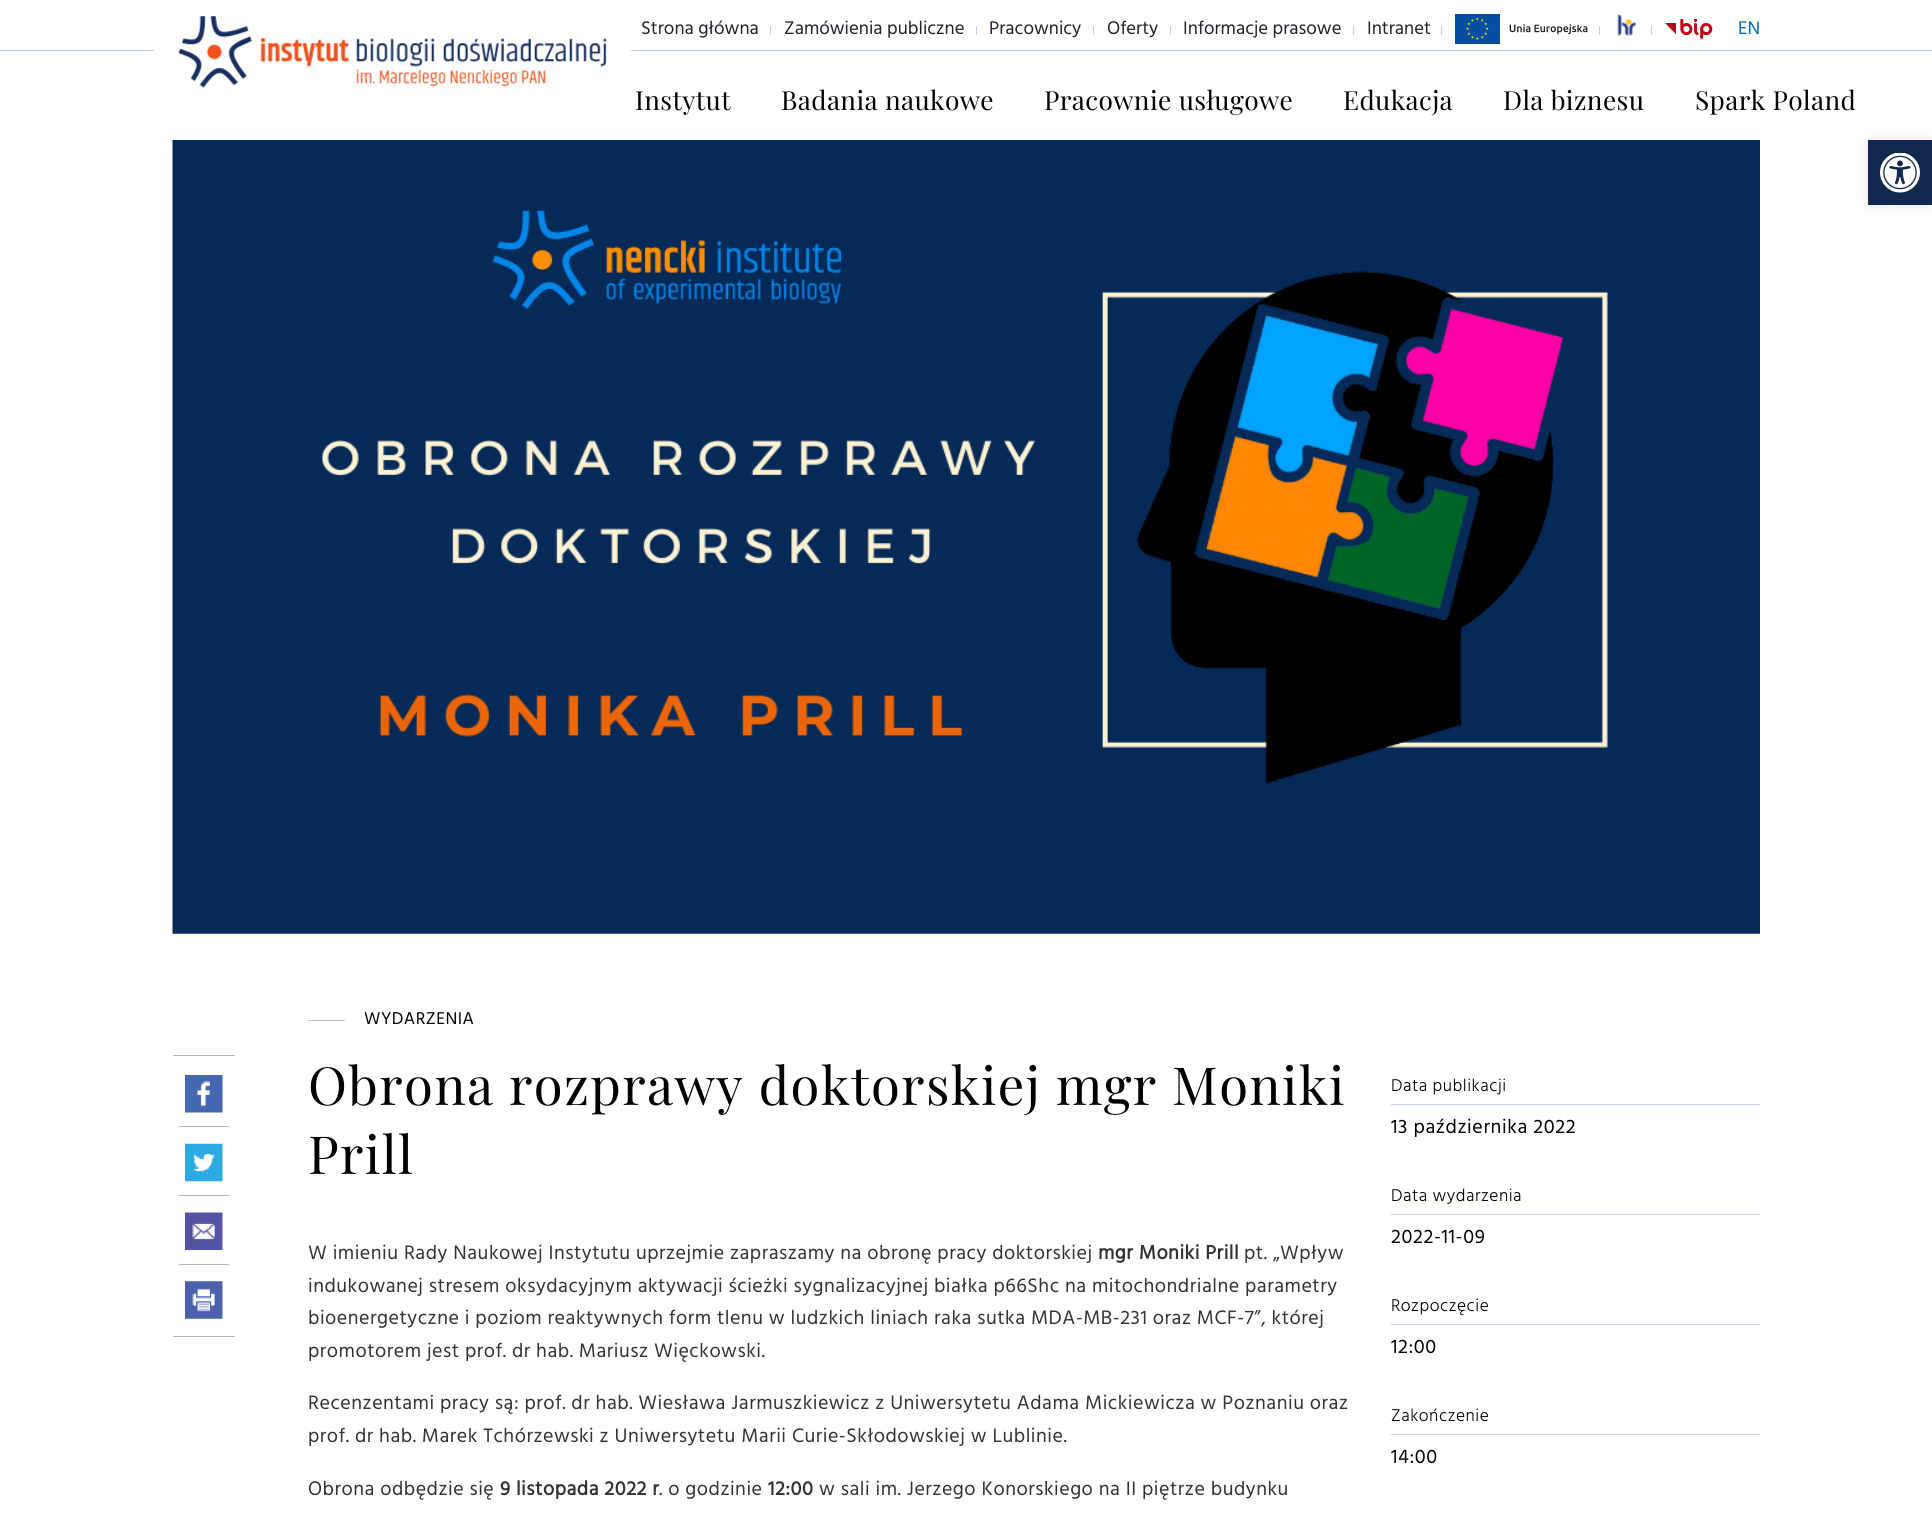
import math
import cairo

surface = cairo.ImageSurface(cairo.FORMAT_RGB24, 1932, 1522)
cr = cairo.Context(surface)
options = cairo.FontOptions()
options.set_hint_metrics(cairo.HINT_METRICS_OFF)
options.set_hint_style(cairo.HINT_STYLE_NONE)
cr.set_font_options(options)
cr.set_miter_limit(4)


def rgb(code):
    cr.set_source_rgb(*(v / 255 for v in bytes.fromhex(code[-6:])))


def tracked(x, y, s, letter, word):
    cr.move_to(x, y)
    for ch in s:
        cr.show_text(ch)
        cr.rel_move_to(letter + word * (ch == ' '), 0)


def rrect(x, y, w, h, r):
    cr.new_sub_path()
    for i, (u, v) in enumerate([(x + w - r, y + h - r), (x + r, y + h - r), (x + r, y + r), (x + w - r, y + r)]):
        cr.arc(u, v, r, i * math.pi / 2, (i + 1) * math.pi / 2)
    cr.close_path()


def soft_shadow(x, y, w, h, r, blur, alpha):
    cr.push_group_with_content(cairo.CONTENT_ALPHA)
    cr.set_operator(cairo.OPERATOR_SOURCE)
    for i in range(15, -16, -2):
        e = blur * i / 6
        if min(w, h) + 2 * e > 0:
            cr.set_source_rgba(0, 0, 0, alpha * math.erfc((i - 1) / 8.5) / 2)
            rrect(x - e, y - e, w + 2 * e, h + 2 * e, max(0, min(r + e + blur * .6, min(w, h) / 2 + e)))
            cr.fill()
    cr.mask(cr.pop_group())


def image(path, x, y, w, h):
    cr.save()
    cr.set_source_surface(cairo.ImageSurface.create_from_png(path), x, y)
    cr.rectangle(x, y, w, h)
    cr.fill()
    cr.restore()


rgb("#ffffff")
cr.paint()
rgb("#bad0ec")
cr.rectangle(0, 50, 1932, 1)
cr.fill()
rgb("#ffffff")
cr.rectangle(154, 50, 477, 1)
cr.fill()
image("img/1.png", 178, 16, 429, 72)
for x, y, w, h, color in [
    (770, 26, 1, 9, "#bad0ec"),
    (976, 26, 1, 9, "#bad0ec"),
    (1093, 26, 1, 9, "#bad0ec"),
    (1170, 26, 1, 9, "#bad0ec"),
    (1353, 26, 1, 9, "#bad0ec"),
    (1441, 26, 1, 9, "#bad0ec"),
]:
    rgb(color)
    cr.rectangle(x, y, w, h)
    cr.fill()
image("img/2.png", 1455, 14, 133, 30)
cr.rectangle(1599, 26, 1, 9)
cr.fill()
image("img/3.png", 1617, 14, 20, 22)
cr.rectangle(1651, 26, 1, 9)
cr.fill()
image("img/4.png", 1665, 19, 48, 20)
rgb("#000000")
soft_shadow(1868, 140, 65, 65, 0, 6, 0.1)
rgb("#11284f")
cr.rectangle(1868, 140, 64, 65)
cr.fill()
image("img/5.png", 1880, 153, 40, 40)
image("img/6.png", 172, 140, 1588, 794)
image("img/7.png", 185, 1075, 38, 38)
rgb("#b5b5b5")
cr.rectangle(173, 1055, 62, 1)
cr.fill()
cr.rectangle(179, 1126, 50, 1)
cr.fill()
image("img/8.png", 185, 1143, 38, 39)
cr.rectangle(179, 1195, 50, 1)
cr.fill()
image("img/9.png", 185, 1212, 38, 38)
cr.rectangle(179, 1264, 50, 1)
cr.fill()
image("img/10.png", 185, 1281, 38, 38)
for x, y, w, h, color in [
    (173, 1336, 62, 1, "#b5b5b5"),
    (308, 1020, 37, 1, "#bcc4d0"),
    (1391, 1104, 369, 1, "#c4d3e9"),
    (1391, 1214, 369, 1, "#c4d3e9"),
    (1391, 1324, 369, 1, "#c4d3e9"),
    (1391, 1434, 369, 1, "#c4d3e9"),
]:
    rgb(color)
    cr.rectangle(x, y, w, h)
    cr.fill()
cr.select_font_face("Hind")
cr.set_font_size(18.75)
rgb("#20212b")
for x, y, s in [
    (641, 34, "Strona główna"),
    (784, 34, "Zamówienia publiczne"),
    (989, 34, "Pracownicy"),
    (1107, 34, "Oferty"),
    (1183, 34, "Informacje prasowe"),
    (1367, 34, "Intranet"),
]:
    cr.move_to(x, y)
    cr.show_text(s)
rgb("#006cb8")
cr.move_to(1738, 34)
cr.show_text("EN")
cr.select_font_face("Playfair Display")
cr.set_font_size(26.25)
rgb("#000000")
for x, y, s in [
    (635, 110, "Instytut"),
    (781, 110, "Badania naukowe"),
    (1044, 110, "Pracownie usługowe"),
    (1343, 110, "Edukacja"),
    (1503, 110, "Dla biznesu"),
    (1695, 110, "Spark Poland"),
]:
    tracked(x, y, s, 0.4, 0)
cr.select_font_face("Hind")
cr.set_font_size(17.5)
tracked(364, 1024, "WYDARZENIA", 0.5, 0)
cr.select_font_face("Playfair Display")
cr.set_font_size(52.5)
tracked(308, 1105, "Obrona rozprawy doktorskiej mgr Moniki", 1.4, 0)
tracked(308, 1174, "Prill", 1.4, 0)
cr.select_font_face("Hind")
cr.set_font_size(20)
rgb("#333333")
tracked(308, 1259, "W imieniu Rady Naukowej Instytutu uprzejmie zapraszamy na obronę pracy doktorskiej", 0.5, 0)
cr.select_font_face("Hind", cairo.FONT_SLANT_NORMAL, cairo.FONT_WEIGHT_BOLD)
tracked(1098, 1259, "mgr Moniki Prill", 0.5, 0)
cr.select_font_face("Hind")
for x, y, s in [
    (1244, 1259, "pt. „Wpływ"),
    (308, 1292, "indukowanej stresem oksydacyjnym aktywacji ścieżki sygnalizacyjnej białka p66Shc na mitochondrialne parametry"),
    (308, 1324, "bioenergetyczne i poziom reaktywnych form tlenu w ludzkich liniach raka sutka MDA-MB-231 oraz MCF-7”, której"),
    (308, 1357, "promotorem jest prof. dr hab. Mariusz Więckowski."),
    (308, 1409, "Recenzentami pracy są: prof. dr hab. Wiesława Jarmuszkiewicz z Uniwersytetu Adama Mickiewicza w Poznaniu oraz"),
    (308, 1442, "prof. dr hab. Marek Tchórzewski z Uniwersytetu Marii Curie-Skłodowskiej w Lublinie."),
    (308, 1495, "Obrona odbędzie się"),
]:
    tracked(x, y, s, 0.5, 0)
cr.select_font_face("Hind", cairo.FONT_SLANT_NORMAL, cairo.FONT_WEIGHT_BOLD)
tracked(500, 1495, "9 listopada 2022 r", 0.5, 0)
cr.select_font_face("Hind")
tracked(659, 1495, ". o godzinie", 0.5, 0)
cr.select_font_face("Hind", cairo.FONT_SLANT_NORMAL, cairo.FONT_WEIGHT_BOLD)
tracked(768, 1495, "12:00", 0.5, 0)
cr.select_font_face("Hind")
tracked(819, 1495, "w sali im. Jerzego Konorskiego na II piętrze budynku", 0.5, 0)
cr.select_font_face("Hind Light")
cr.set_font_size(17.5)
rgb("#000000")
tracked(1391, 1091, "Data publikacji", 0.5, 0)
cr.select_font_face("Hind")
cr.set_font_size(20)
tracked(1391, 1133, "13 października 2022", 0.6, 0)
cr.select_font_face("Hind Light")
cr.set_font_size(17.5)
tracked(1391, 1201, "Data wydarzenia", 0.5, 0)
cr.select_font_face("Hind")
cr.set_font_size(20)
tracked(1391, 1243, "2022-11-09", 0.6, 0)
cr.select_font_face("Hind Light")
cr.set_font_size(17.5)
tracked(1391, 1311, "Rozpoczęcie", 0.5, 0)
cr.select_font_face("Hind")
cr.set_font_size(20)
tracked(1391, 1353, "12:00", 0.6, 0)
cr.select_font_face("Hind Light")
cr.set_font_size(17.5)
tracked(1391, 1421, "Zakończenie", 0.5, 0)
cr.select_font_face("Hind")
cr.set_font_size(20)
tracked(1391, 1463, "14:00", 0.6, 0)
surface.write_to_png("page.png")
